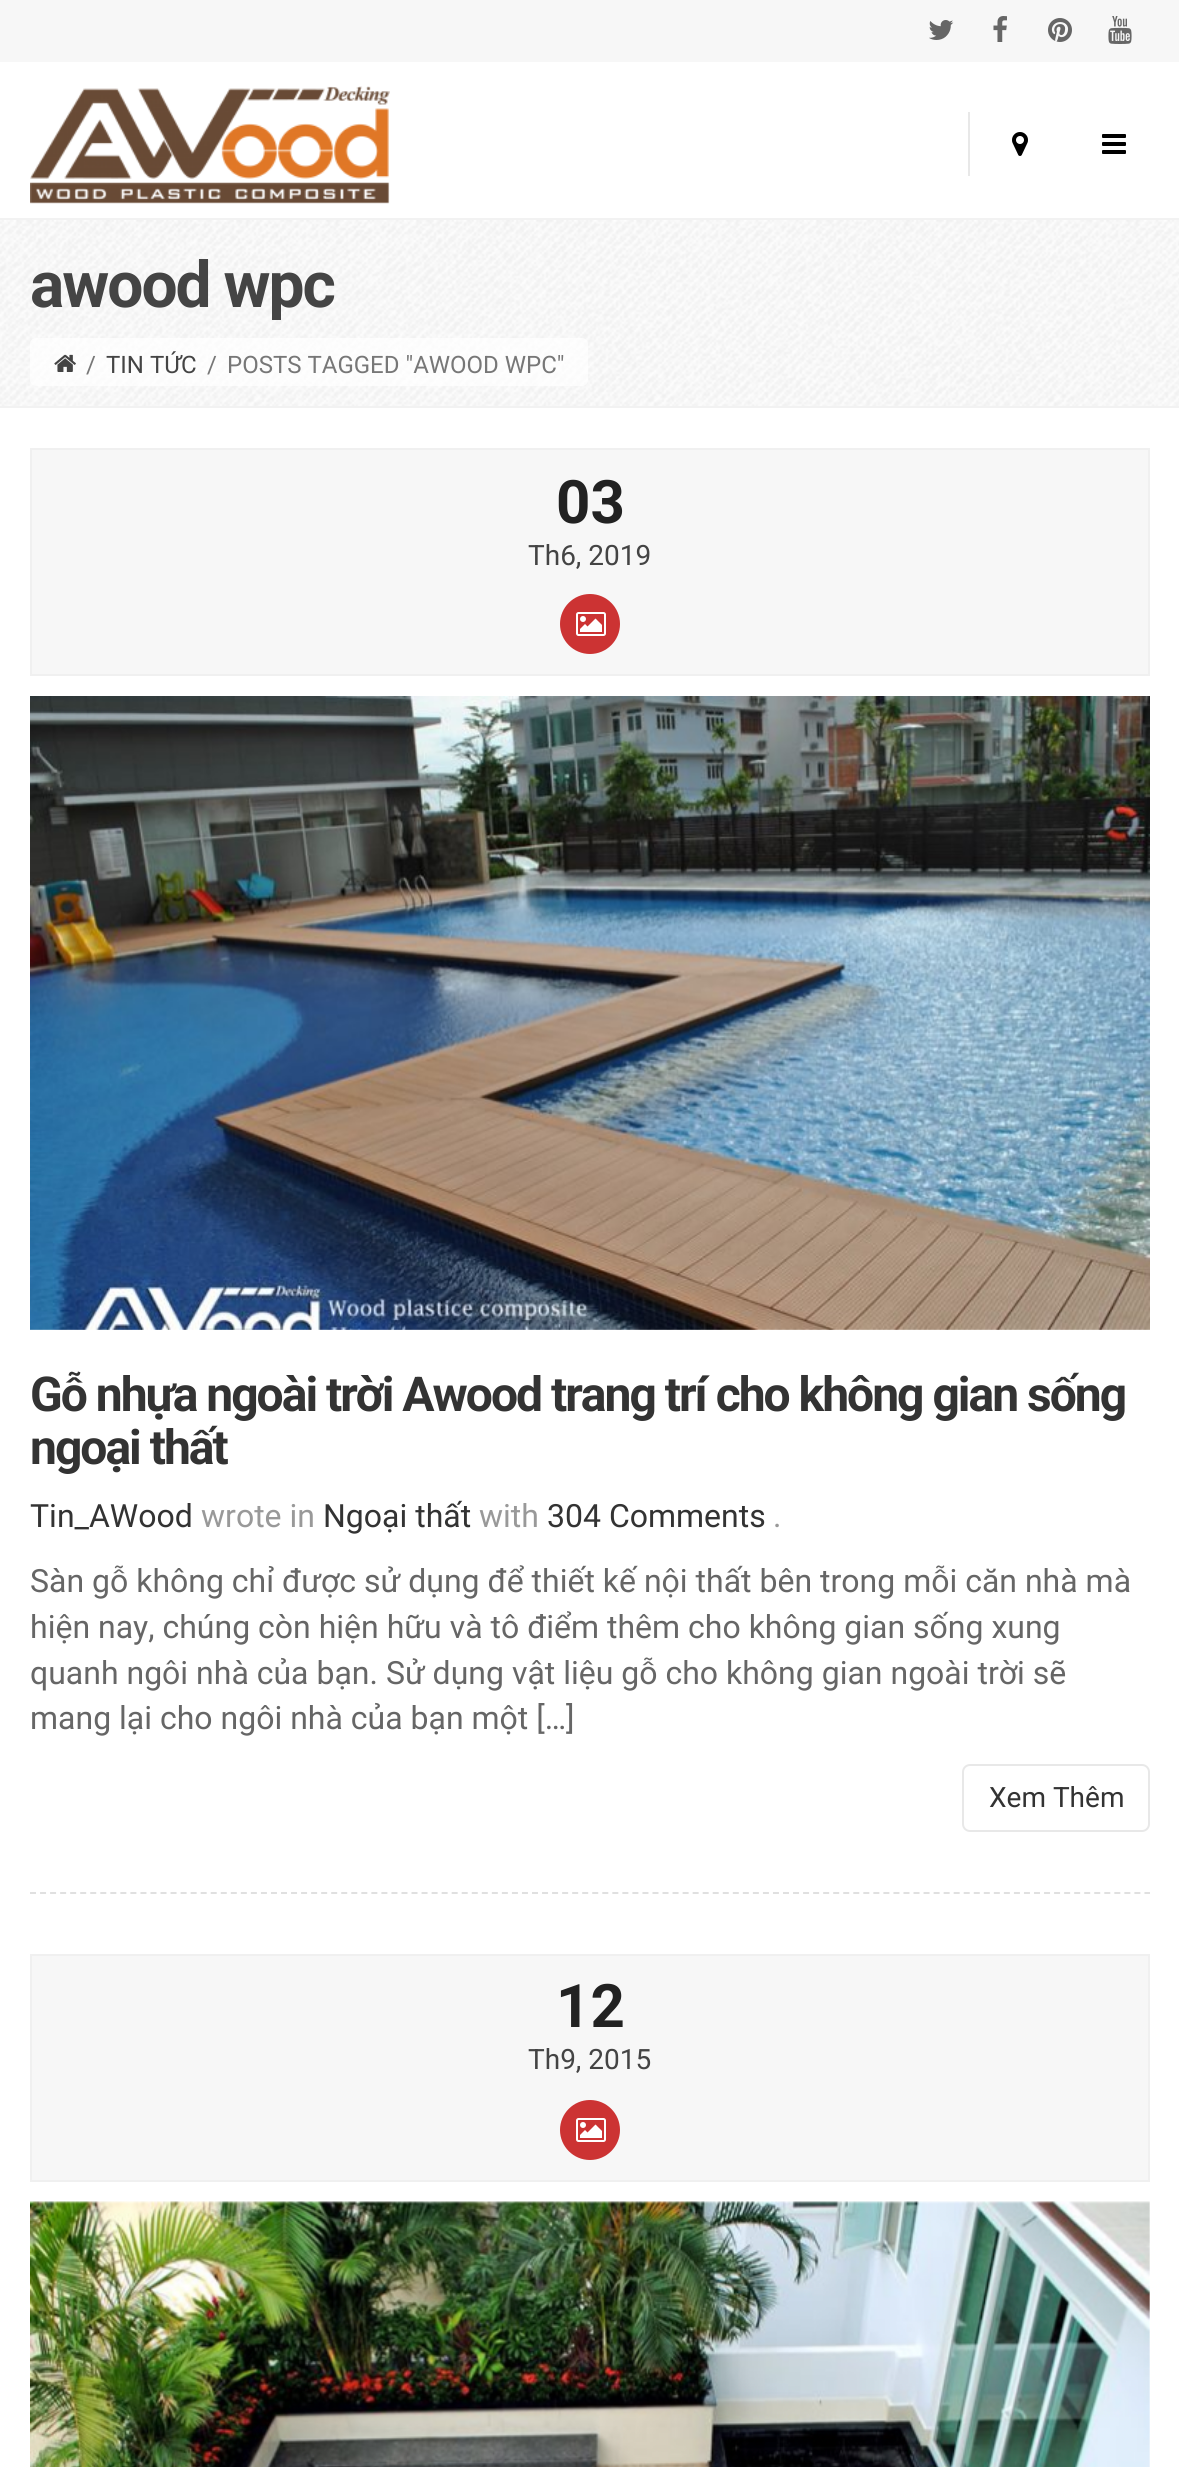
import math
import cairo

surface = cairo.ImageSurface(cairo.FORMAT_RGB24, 1179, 2467)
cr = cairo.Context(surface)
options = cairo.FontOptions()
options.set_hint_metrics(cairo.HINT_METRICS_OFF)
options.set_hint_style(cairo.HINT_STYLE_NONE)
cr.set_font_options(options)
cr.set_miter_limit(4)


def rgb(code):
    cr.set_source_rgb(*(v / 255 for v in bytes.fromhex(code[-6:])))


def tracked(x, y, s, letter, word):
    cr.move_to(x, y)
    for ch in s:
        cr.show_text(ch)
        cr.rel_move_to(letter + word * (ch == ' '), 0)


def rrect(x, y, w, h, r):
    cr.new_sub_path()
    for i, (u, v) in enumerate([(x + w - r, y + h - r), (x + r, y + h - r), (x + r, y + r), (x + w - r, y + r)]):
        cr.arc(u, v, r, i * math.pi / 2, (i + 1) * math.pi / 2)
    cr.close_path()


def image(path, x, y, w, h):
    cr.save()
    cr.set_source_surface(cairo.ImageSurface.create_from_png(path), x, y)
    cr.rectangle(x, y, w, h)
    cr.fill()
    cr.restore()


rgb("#ffffff")
cr.paint()
rgb("#f7f7f7")
cr.rectangle(0, 0, 1179, 62)
cr.fill()
image("img/1.png", 929, 20, 25, 20)
image("img/2.png", 993, 16, 14, 26)
image("img/3.png", 1048, 18, 24, 24)
image("img/4.png", 1108, 16, 24, 28)
rgb("#f2f2f2")
cr.rectangle(0, 218, 1179, 2)
cr.fill()
image("img/5.png", 30, 86, 360, 118)
rgb("#e8e8e8")
cr.rectangle(968, 112, 2, 64)
cr.fill()
image("img/6.png", 1012, 132, 16, 24)
image("img/7.png", 1102, 134, 24, 20)
image("img/8.png", 0, 220, 1179, 186)
rgb("#f2f2f2")
cr.rectangle(0, 406, 1179, 2)
cr.fill()
cr.set_source_rgba(1, 1, 1, 0.7)
rrect(30, 338, 558, 48, 6)
cr.fill()
image("img/9.png", 54, 354, 22, 18)
cr.new_path()
cr.move_to(30, 1893)
cr.line_to(1150, 1893)
rgb("#e0e0e0")
cr.set_dash([6, 4.04])
cr.stroke()
rgb("#f7f7f7")
cr.rectangle(31, 449, 1118, 226)
cr.fill_preserve()
rgb("#f0f0f0")
cr.set_dash([])
cr.stroke()
rgb("#cc3333")
cr.arc(590, 624, 30, 0, 2 * math.pi)
cr.fill()
image("img/10.png", 576, 612, 30, 24)
image("img/11.png", 30, 696, 1120, 634)
rrect(963, 1765, 186, 66, 7)
rgb("#e8e8e8")
cr.stroke()
rgb("#f7f7f7")
cr.rectangle(31, 1955, 1118, 226)
cr.fill_preserve()
rgb("#f0f0f0")
cr.stroke()
rgb("#cc3333")
cr.arc(590, 2130, 30, 0, 2 * math.pi)
cr.fill()
image("img/10.png", 576, 2118, 30, 24)
image("img/12.png", 30, 2201, 1120, 266)
cr.select_font_face("Roboto", cairo.FONT_SLANT_NORMAL, cairo.FONT_WEIGHT_BOLD)
cr.set_font_size(64)
rgb("#444444")
tracked(30, 307, "awood wpc", -2, 0)
cr.select_font_face("Roboto")
cr.set_font_size(24)
rgb("#777777")
cr.move_to(86, 373)
cr.show_text("/")
rgb("#444444")
cr.move_to(106, 373)
cr.show_text("TIN TỨC")
rgb("#777777")
cr.move_to(207, 373)
cr.show_text("/")
cr.move_to(227, 373)
cr.show_text("POSTS TAGGED \"AWOOD WPC\"")
cr.select_font_face("Roboto", cairo.FONT_SLANT_NORMAL, cairo.FONT_WEIGHT_BOLD)
cr.set_font_size(60)
rgb("#222222")
cr.move_to(556, 523)
cr.show_text("03")
cr.select_font_face("Roboto")
cr.set_font_size(28)
rgb("#444444")
cr.move_to(528, 565)
cr.show_text("Th6, 2019")
cr.select_font_face("Roboto", cairo.FONT_SLANT_NORMAL, cairo.FONT_WEIGHT_BOLD)
cr.set_font_size(48)
rgb("#333333")
tracked(30, 1411, "Gỗ nhựa ngoài trời Awood trang trí cho không gian sống", -2, 0)
tracked(30, 1464, "ngoại thất", -2, 0)
cr.select_font_face("Roboto")
cr.set_font_size(32)
cr.move_to(30, 1527)
cr.show_text("Tin_AWood")
rgb("#999999")
cr.move_to(201, 1527)
cr.show_text("wrote in")
rgb("#333333")
cr.move_to(323, 1527)
cr.show_text("Ngoại thất")
rgb("#999999")
cr.move_to(479, 1527)
cr.show_text("with")
rgb("#333333")
cr.move_to(547, 1527)
cr.show_text("304 Comments")
rgb("#999999")
cr.move_to(773, 1527)
cr.show_text(".")
rgb("#666666")
for x, y, s in [
    (30, 1592, "Sàn gỗ không chỉ được sử dụng để thiết kế nội thất bên trong mỗi căn nhà mà"),
    (30, 1638, "hiện nay, chúng còn hiện hữu và tô điểm thêm cho không gian sống xung"),
    (30, 1684, "quanh ngôi nhà của bạn. Sử dụng vật liệu gỗ cho không gian ngoài trời sẽ"),
    (30, 1729, "mang lại cho ngôi nhà của bạn một […]"),
]:
    cr.move_to(x, y)
    cr.show_text(s)
cr.set_font_size(28)
rgb("#333333")
cr.move_to(989, 1807)
cr.show_text("Xem Thêm")
cr.select_font_face("Roboto", cairo.FONT_SLANT_NORMAL, cairo.FONT_WEIGHT_BOLD)
cr.set_font_size(60)
rgb("#222222")
cr.move_to(556, 2027)
cr.show_text("12")
cr.select_font_face("Roboto")
cr.set_font_size(28)
rgb("#444444")
cr.move_to(528, 2069)
cr.show_text("Th9, 2015")
surface.write_to_png("page.png")
